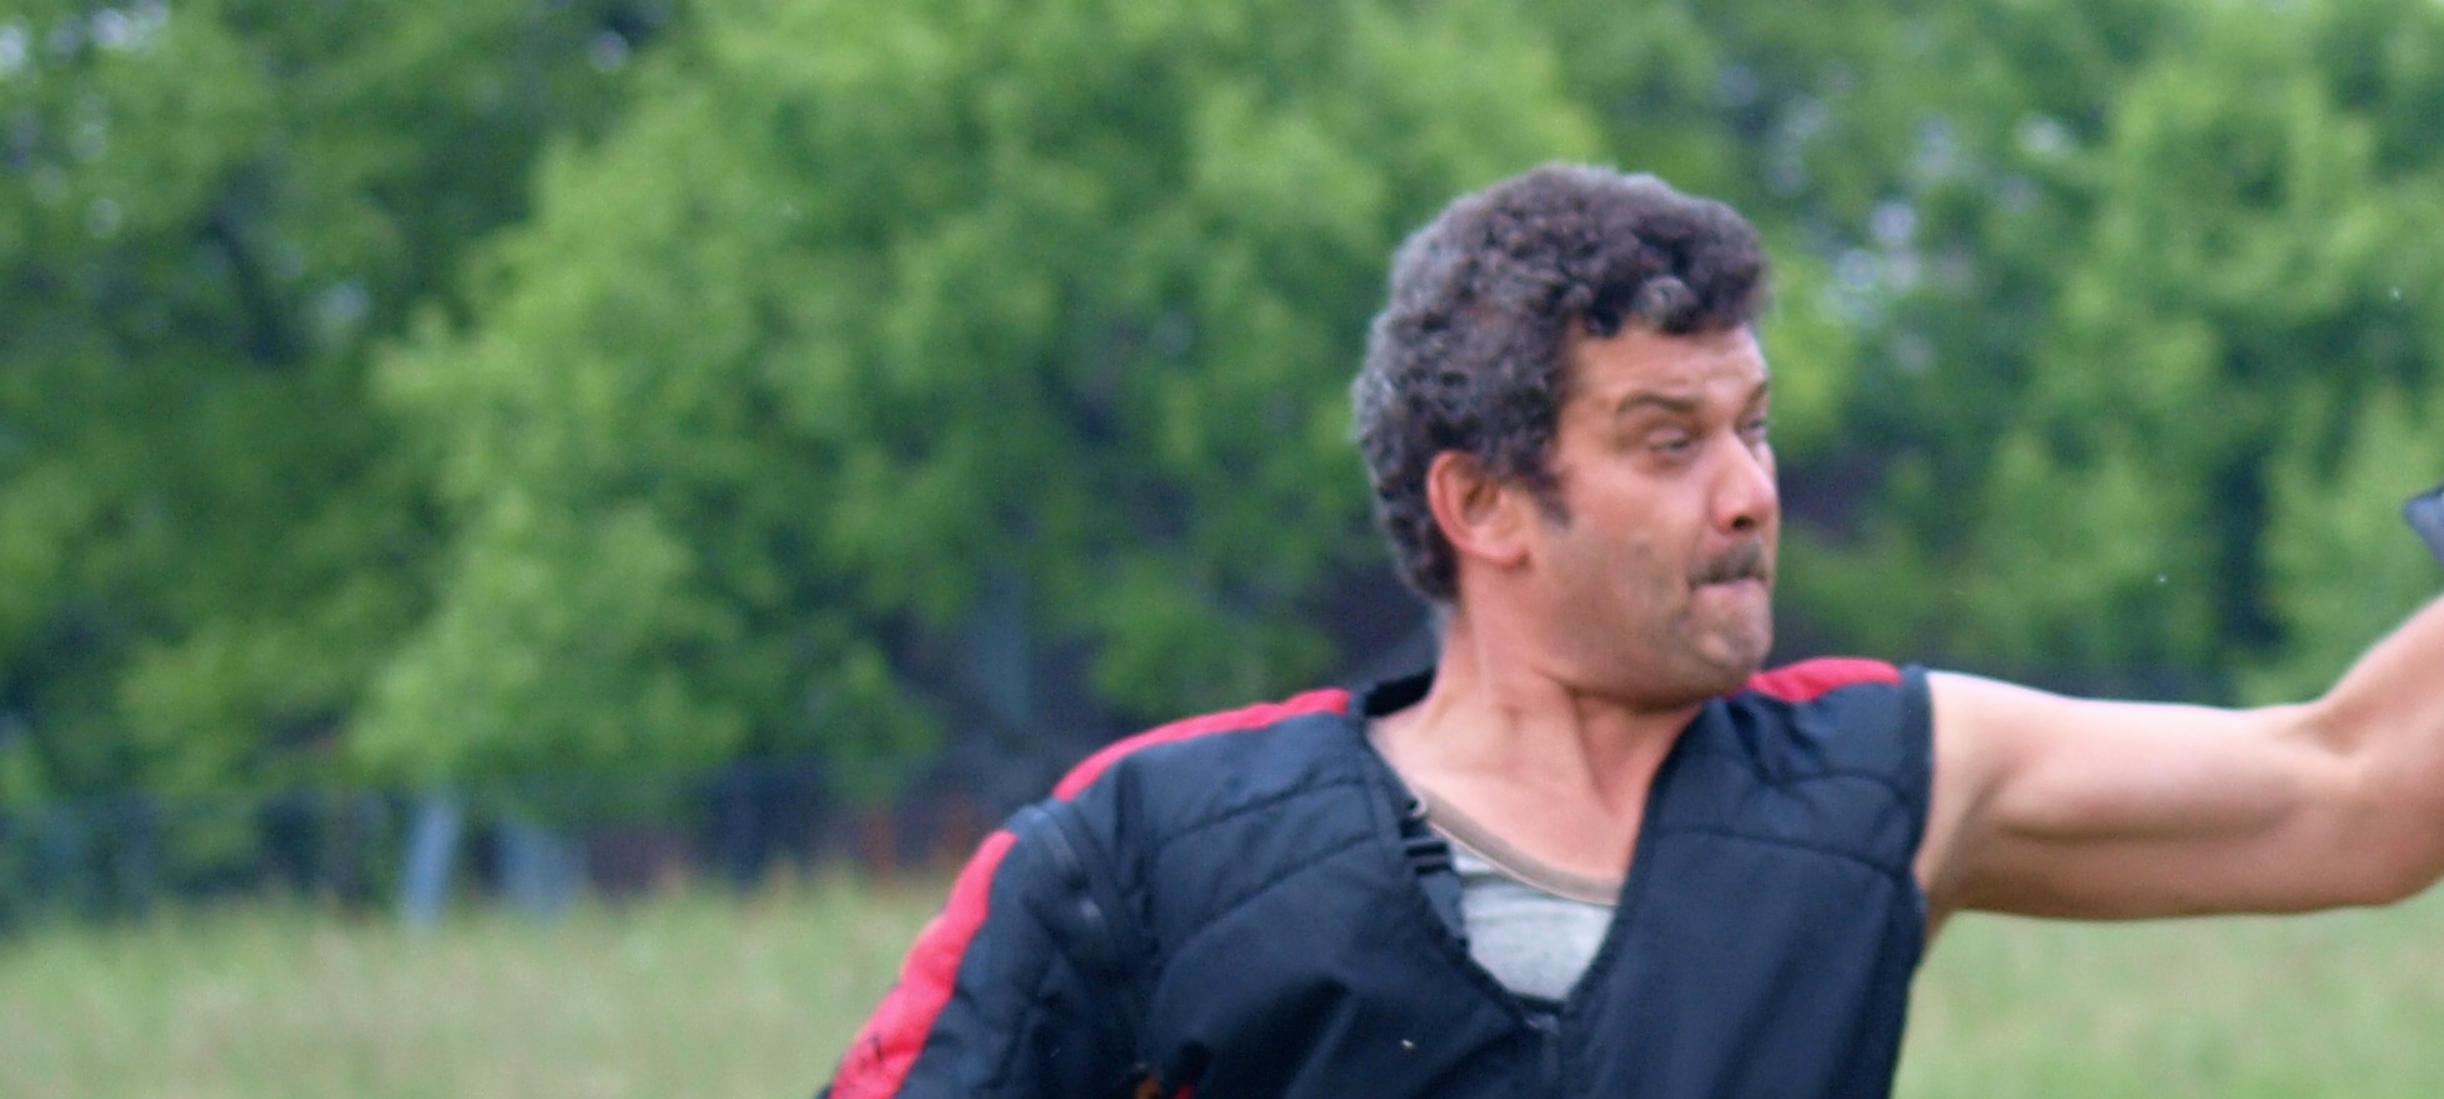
import math
import cairo

surface = cairo.ImageSurface(cairo.FORMAT_RGB24, 2444, 1099)
cr = cairo.Context(surface)
options = cairo.FontOptions()
options.set_hint_metrics(cairo.HINT_METRICS_OFF)
options.set_hint_style(cairo.HINT_STYLE_NONE)
cr.set_font_options(options)
cr.set_miter_limit(4)


def rgb(code):
    cr.set_source_rgb(*(v / 255 for v in bytes.fromhex(code[-6:])))


def image(path, x, y, w, h):
    cr.save()
    cr.set_source_surface(cairo.ImageSurface.create_from_png(path), x, y)
    cr.rectangle(x, y, w, h)
    cr.fill()
    cr.restore()


rgb("#ffffff")
cr.paint()
image("img/1.png", 0, 0, 2444, 1099)
surface.write_to_png("page.png")
